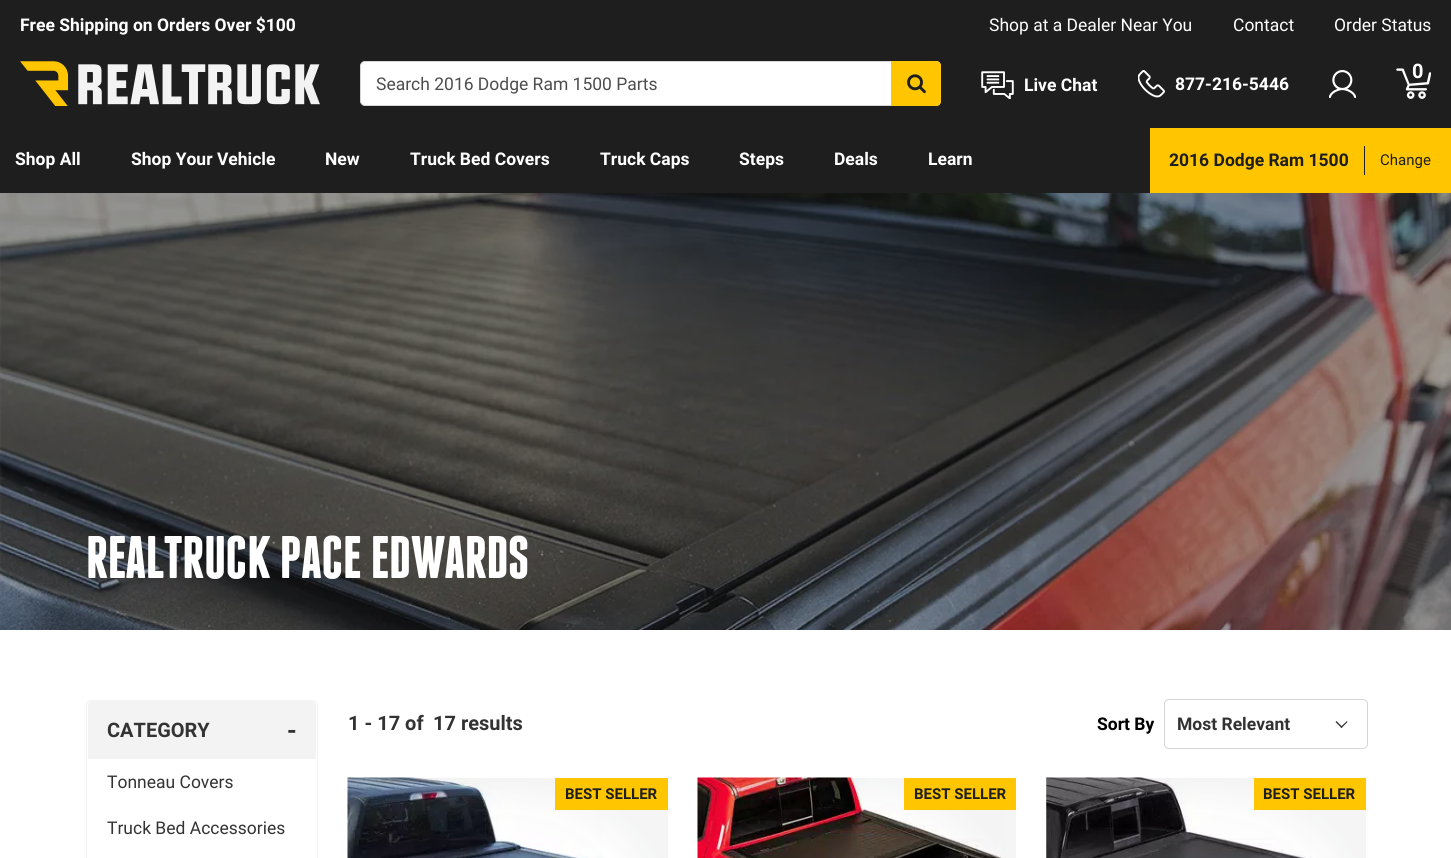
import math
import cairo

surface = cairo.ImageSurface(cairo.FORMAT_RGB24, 1451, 858)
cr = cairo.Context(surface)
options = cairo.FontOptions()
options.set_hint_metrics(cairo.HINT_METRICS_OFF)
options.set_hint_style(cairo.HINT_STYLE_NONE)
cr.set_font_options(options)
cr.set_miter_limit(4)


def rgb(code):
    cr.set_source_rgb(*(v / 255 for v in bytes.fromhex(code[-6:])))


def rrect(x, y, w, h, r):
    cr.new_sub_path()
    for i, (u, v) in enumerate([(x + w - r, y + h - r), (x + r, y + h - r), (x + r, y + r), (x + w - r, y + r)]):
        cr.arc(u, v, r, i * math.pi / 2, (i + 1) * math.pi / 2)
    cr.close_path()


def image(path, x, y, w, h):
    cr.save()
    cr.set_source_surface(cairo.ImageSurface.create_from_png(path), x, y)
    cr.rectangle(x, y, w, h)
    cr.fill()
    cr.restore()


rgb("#ffffff")
cr.paint()
rgb("#1e1e1e")
cr.rectangle(0, 0, 1451, 128)
cr.fill()
image("img/1.png", 20, 61, 300, 45)
rgb("#ffffff")
rrect(360.5, 61.5, 580, 44, 4.5)
cr.fill_preserve()
rgb("#d5d5d5")
cr.set_line_width(1)
cr.stroke()
rgb("#ffc600")
cr.new_path()
cr.move_to(891.5, 61.5)
cr.line_to(936, 61.5)
cr.curve_to(938.5, 61.5, 940.5, 63.5, 940.5, 66)
cr.line_to(940.5, 101)
cr.curve_to(940.5, 103.5, 938.5, 105.5, 936, 105.5)
cr.line_to(891.5, 105.5)
cr.close_path()
cr.fill_preserve()
cr.stroke()
image("img/2.png", 907, 74, 19, 20)
image("img/3.png", 981, 71, 33, 28)
image("img/4.png", 1138, 70, 27, 28)
image("img/5.png", 1329, 70, 27, 28)
image("img/6.png", 1396, 68, 35, 31)
for x, y, w, h, color in [
    (0, 128, 1150, 65, "#1e1e1e"),
    (1150, 128, 301, 65, "#ffc600"),
    (1364, 146, 1, 29, "#1e1e1e"),
]:
    rgb(color)
    cr.rectangle(x, y, w, h)
    cr.fill()
image("img/7.png", 0, 193, 1451, 437)
rrect(86.5, 700.5, 231, 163, 4.5)
rgb("#f3f3f3")
cr.stroke()
cr.new_path()
cr.move_to(92, 701)
cr.line_to(312, 701)
cr.curve_to(314, 701, 316, 703, 316, 705)
cr.line_to(316, 759)
cr.line_to(88, 759)
cr.line_to(88, 705)
cr.curve_to(88, 703, 90, 701, 92, 701)
cr.close_path()
cr.fill()
rrect(1164.5, 699.5, 203, 49, 4.5)
rgb("#d5d5d5")
cr.stroke()
rgb("#333333")
cr.new_path()
cr.move_to(1340.5, 727)
cr.line_to(1347, 721)
cr.line_to(1347.5, 722)
cr.line_to(1341.5, 728)
cr.close_path()
cr.fill()
cr.new_path()
cr.move_to(1335.5, 722)
cr.line_to(1336.5, 721)
cr.line_to(1342.5, 727)
cr.line_to(1341.5, 728)
cr.close_path()
cr.fill()
image("img/8.png", 347, 777, 256, 81)
gradient = cairo.RadialGradient(0, 0, 0, 0, 0, 1)
gradient.set_matrix(cairo.Matrix(1 / 160, 0, 0, 1 / 120, -1 * 508 / 160, -1 * 898 / 120))
gradient.add_color_stop_rgba(0.5, 0.216, 0.243, 0.243, 0)
gradient.add_color_stop_rgba(0.74, 0.216, 0.243, 0.243, 0.01)
gradient.add_color_stop_rgba(1, 0.216, 0.243, 0.243, 0.05)
cr.set_source(gradient)
cr.rectangle(348, 778, 320, 80)
cr.fill()
rgb("#ffc600")
cr.rectangle(555, 778, 113, 32)
cr.fill()
image("img/9.png", 697, 777, 309, 81)
gradient = cairo.RadialGradient(0, 0, 0, 0, 0, 1)
gradient.set_matrix(cairo.Matrix(1 / 159, 0, 0, 1 / 120, -1 * 857 / 159, -1 * 898 / 120))
gradient.add_color_stop_rgba(0.5, 0.216, 0.243, 0.243, 0)
gradient.add_color_stop_rgba(0.74, 0.216, 0.243, 0.243, 0.01)
gradient.add_color_stop_rgba(1, 0.216, 0.243, 0.243, 0.05)
cr.set_source(gradient)
cr.rectangle(698, 778, 318, 80)
cr.fill()
rgb("#ffc600")
cr.rectangle(904, 778, 112, 32)
cr.fill()
image("img/10.png", 1046, 777, 267, 81)
gradient = cairo.RadialGradient(0, 0, 0, 0, 0, 1)
gradient.set_matrix(cairo.Matrix(1 / 160, 0, 0, 1 / 120, -1 * 1206 / 160, -1 * 898 / 120))
gradient.add_color_stop_rgba(0.5, 0.216, 0.243, 0.243, 0)
gradient.add_color_stop_rgba(0.74, 0.216, 0.243, 0.243, 0.01)
gradient.add_color_stop_rgba(1, 0.216, 0.243, 0.243, 0.05)
cr.set_source(gradient)
cr.rectangle(1046, 778, 320, 80)
cr.fill()
rgb("#ffc600")
cr.rectangle(1254, 778, 112, 32)
cr.fill()
cr.select_font_face("Roboto", cairo.FONT_SLANT_NORMAL, cairo.FONT_WEIGHT_BOLD)
cr.set_font_size(17.5)
rgb("#ffffff")
cr.move_to(20, 31)
cr.show_text("Free Shipping on Orders Over $100")
cr.select_font_face("Roboto")
for x, y, s in [
    (989, 31, "Shop at a Dealer Near You"),
    (1233, 31, "Contact"),
    (1334, 31, "Order Status"),
]:
    cr.move_to(x, y)
    cr.show_text(s)
rgb("#4d4d4d")
cr.move_to(376, 90)
cr.show_text("Search 2016 Dodge Ram 1500 Parts")
cr.select_font_face("Roboto", cairo.FONT_SLANT_NORMAL, cairo.FONT_WEIGHT_BOLD)
rgb("#ffffff")
cr.move_to(1024, 91)
cr.show_text("Live Chat")
cr.move_to(1175, 90)
cr.show_text("877-216-5446")
cr.set_font_size(20)
cr.move_to(1412, 78)
cr.show_text("0")
cr.set_font_size(17.5)
for x, y, s in [
    (15, 165, "Shop All"),
    (131, 165, "Shop Your Vehicle"),
    (325, 165, "New"),
    (410, 165, "Truck Bed Covers"),
    (600, 165, "Truck Caps"),
    (739, 165, "Steps"),
    (834, 165, "Deals"),
    (928, 165, "Learn"),
]:
    cr.move_to(x, y)
    cr.show_text(s)
rgb("#1e1e1e")
cr.move_to(1169, 166)
cr.show_text("2016 Dodge Ram 1500")
cr.select_font_face("Roboto")
cr.set_font_size(15)
cr.move_to(1380, 165)
cr.show_text("Change")
cr.select_font_face("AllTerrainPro")
cr.set_font_size(60)
rgb("#ffffff")
cr.move_to(86, 578)
cr.show_text("REALTRUCK PACE EDWARDS")
cr.select_font_face("Roboto", cairo.FONT_SLANT_NORMAL, cairo.FONT_WEIGHT_BOLD)
cr.set_font_size(20)
rgb("#333333")
cr.move_to(107, 737)
cr.show_text("CATEGORY")
cr.set_font_size(25)
cr.move_to(287, 739)
cr.show_text("-")
cr.select_font_face("Roboto")
cr.set_font_size(17.5)
cr.move_to(107, 788)
cr.show_text("Tonneau Covers")
cr.move_to(107, 834)
cr.show_text("Truck Bed Accessories")
cr.select_font_face("Roboto", cairo.FONT_SLANT_NORMAL, cairo.FONT_WEIGHT_BOLD)
cr.set_font_size(20)
cr.move_to(348, 730)
cr.show_text("1 - 17 of")
cr.move_to(433, 730)
cr.show_text("17 results")
cr.set_font_size(17.5)
rgb("#000000")
cr.move_to(1097, 730)
cr.show_text("Sort By")
rgb("#333333")
cr.move_to(1177, 730)
cr.show_text("Most Relevant")
cr.set_font_size(15)
rgb("#1e1e1e")
for x, y, s in [
    (565, 799, "BEST SELLER"),
    (914, 799, "BEST SELLER"),
    (1263, 799, "BEST SELLER"),
]:
    cr.move_to(x, y)
    cr.show_text(s)
surface.write_to_png("page.png")
